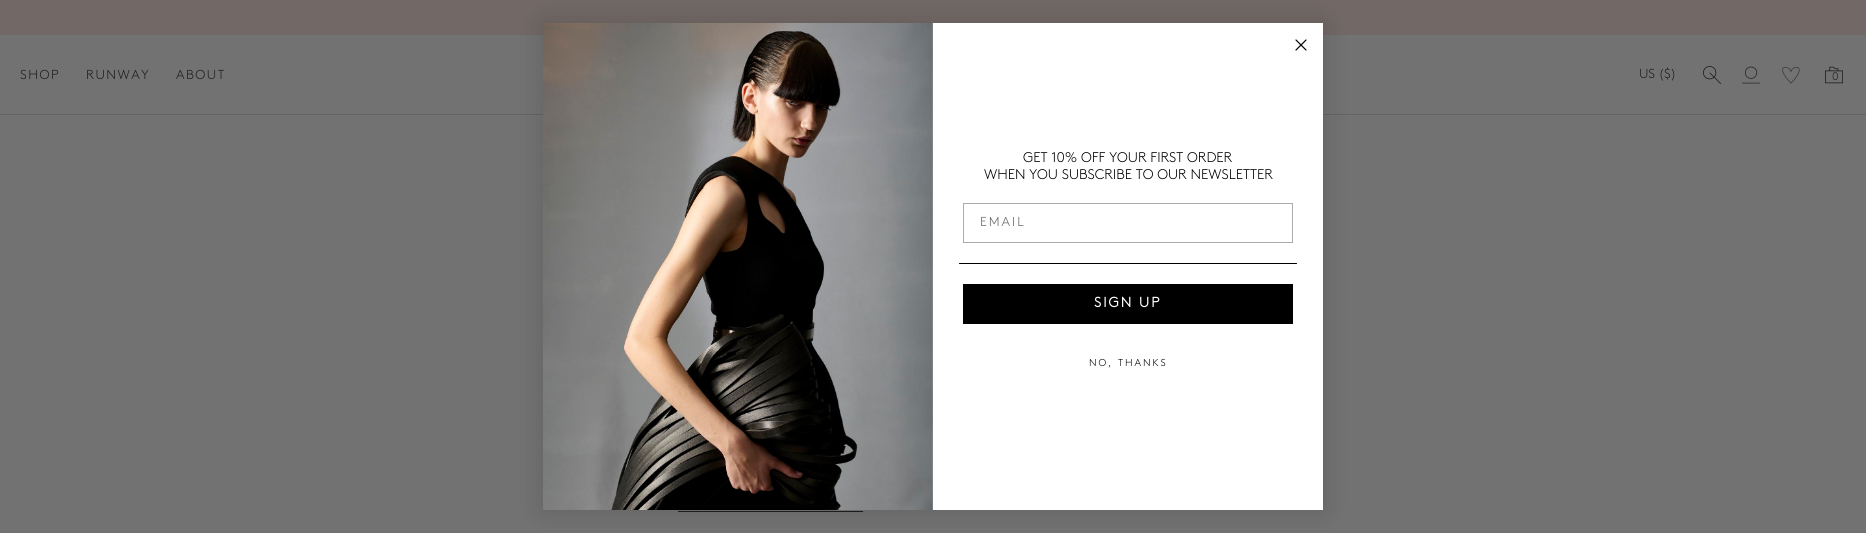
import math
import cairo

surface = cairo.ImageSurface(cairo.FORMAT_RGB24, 1866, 533)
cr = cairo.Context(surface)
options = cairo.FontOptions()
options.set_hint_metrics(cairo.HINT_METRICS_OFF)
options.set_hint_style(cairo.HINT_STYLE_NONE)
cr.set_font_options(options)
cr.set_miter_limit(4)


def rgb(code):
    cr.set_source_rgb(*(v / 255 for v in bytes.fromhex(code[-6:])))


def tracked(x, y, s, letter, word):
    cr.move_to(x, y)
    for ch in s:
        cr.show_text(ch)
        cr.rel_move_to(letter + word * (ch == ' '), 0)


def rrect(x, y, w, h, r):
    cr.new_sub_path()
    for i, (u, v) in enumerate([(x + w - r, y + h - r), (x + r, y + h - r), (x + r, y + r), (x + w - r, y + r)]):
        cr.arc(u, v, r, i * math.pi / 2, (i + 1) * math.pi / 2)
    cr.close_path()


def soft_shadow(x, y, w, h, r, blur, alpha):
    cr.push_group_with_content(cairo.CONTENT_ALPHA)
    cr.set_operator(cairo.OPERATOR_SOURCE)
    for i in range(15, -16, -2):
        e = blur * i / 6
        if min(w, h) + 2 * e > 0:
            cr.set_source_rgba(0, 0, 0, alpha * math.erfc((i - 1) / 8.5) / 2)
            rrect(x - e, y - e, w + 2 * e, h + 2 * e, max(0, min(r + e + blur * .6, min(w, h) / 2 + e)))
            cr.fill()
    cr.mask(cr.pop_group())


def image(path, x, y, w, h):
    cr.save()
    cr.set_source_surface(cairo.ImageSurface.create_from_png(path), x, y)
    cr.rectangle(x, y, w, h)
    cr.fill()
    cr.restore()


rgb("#727272")
cr.paint()
rgb("#726967")
cr.rectangle(0, 0, 1866, 35)
cr.fill()
rgb("#636363")
cr.rectangle(0, 114, 1866, 1)
cr.fill()
image("img/1.png", 1703, 66, 18, 18)
image("img/2.png", 1742, 66, 18, 18)
image("img/3.png", 1782, 67, 18, 17)
image("img/4.png", 1825, 66, 18, 18)
rgb("#1f1f1f")
cr.rectangle(678, 511, 185, 1)
cr.fill()
rgb("#000000")
soft_shadow(543, 23, 780, 487, 0, 15, 0.15)
rgb("#ffffff")
cr.rectangle(932, 23, 391, 487)
cr.fill()
cr.new_path()
cr.move_to(1296, 40)
cr.line_to(1306, 50)
cr.move_to(1296, 50)
cr.line_to(1306, 40)
cr.close_path()
rgb("#000000")
cr.set_line_width(1.2)
cr.set_line_cap(cairo.LINE_CAP_ROUND)
cr.set_line_join(cairo.LINE_JOIN_ROUND)
cr.stroke()
image("img/5.png", 543, 23, 390, 487)
cr.rectangle(963.5, 203.5, 329, 39)
rgb("#ababab")
cr.set_line_width(1)
cr.set_line_cap(cairo.LINE_CAP_BUTT)
cr.set_line_join(cairo.LINE_JOIN_MITER)
cr.stroke()
image("img/6.png", 959, 263, 338, 1)
rgb("#000000")
cr.rectangle(963, 284, 330, 40)
cr.fill()
cr.select_font_face("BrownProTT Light")
cr.set_font_size(13)
rgb("#1e1e1e")
for x, y, s in [
    (20, 79, "SHOP"),
    (86, 79, "RUNWAY"),
    (176, 79, "ABOUT"),
]:
    tracked(x, y, s, 1.5, 0)
cr.move_to(1639, 78)
cr.show_text("US ($)")
cr.set_font_size(11)
tracked(1832, 80, "0", 1.5, 0)
cr.select_font_face("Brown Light")
cr.set_font_size(14)
rgb("#000000")
cr.move_to(1023, 162)
cr.show_text("GET 10% OFF YOUR FIRST ORDER")
cr.move_to(984, 179)
cr.show_text("WHEN YOU SUBSCRIBE TO OUR NEWSLETTER")
cr.set_font_size(13)
rgb("#666666")
tracked(980, 226, "EMAIL", 2, 0)
cr.select_font_face("BrownProTT", cairo.FONT_SLANT_NORMAL, cairo.FONT_WEIGHT_BOLD)
cr.set_font_size(14)
rgb("#ffffff")
tracked(1094, 307, "SIGN UP", 2, 0)
cr.select_font_face("BrownProTT Light")
cr.set_font_size(10)
rgb("#000000")
tracked(1089, 366, "NO, THANKS", 2, 0)
surface.write_to_png("page.png")
